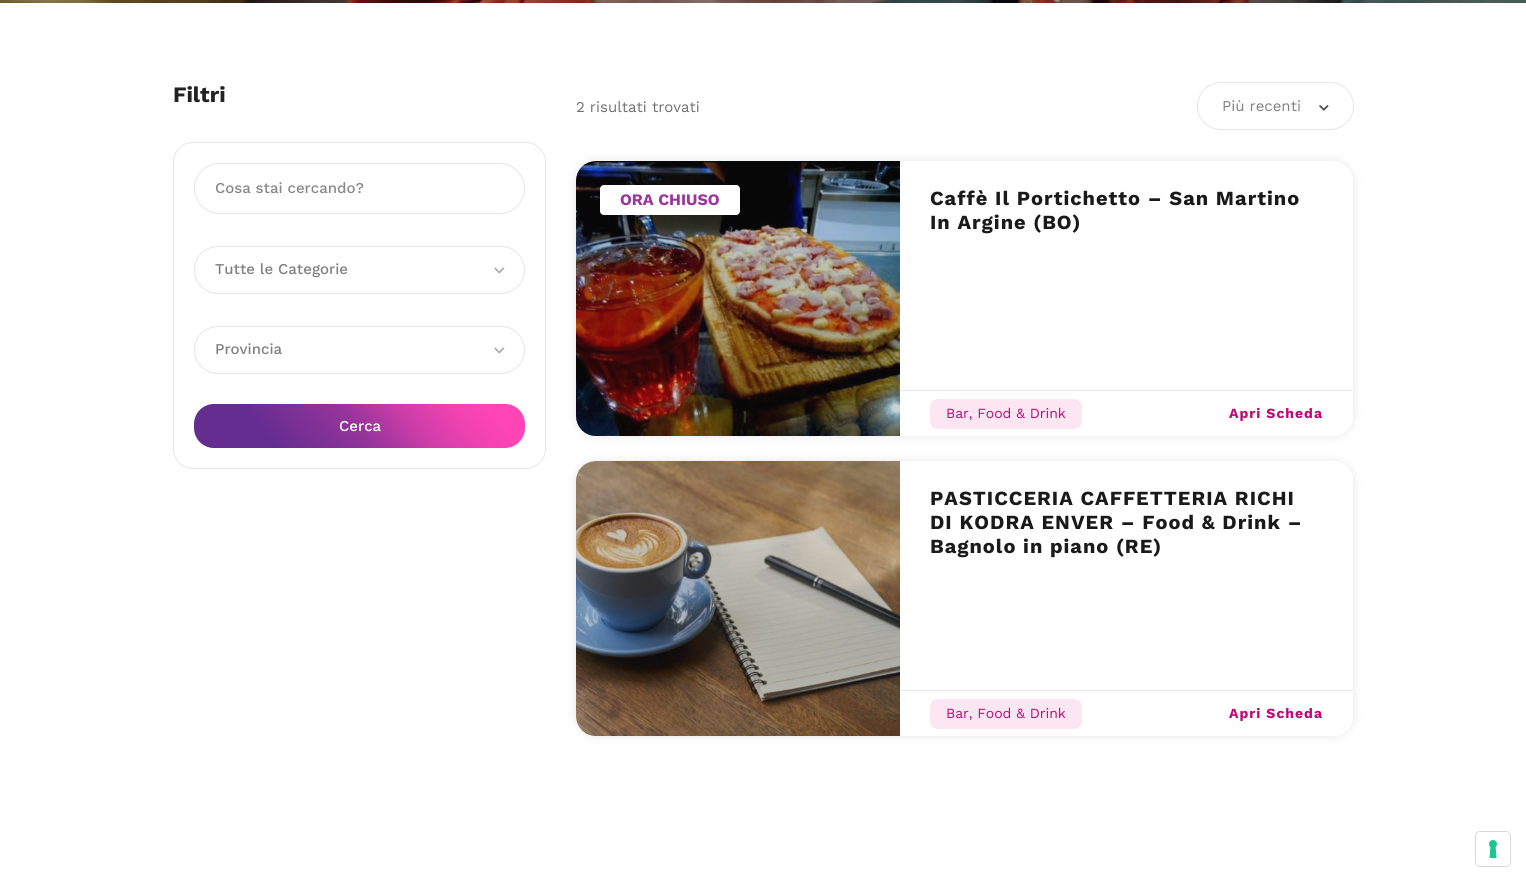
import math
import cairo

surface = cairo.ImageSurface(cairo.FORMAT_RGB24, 1526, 882)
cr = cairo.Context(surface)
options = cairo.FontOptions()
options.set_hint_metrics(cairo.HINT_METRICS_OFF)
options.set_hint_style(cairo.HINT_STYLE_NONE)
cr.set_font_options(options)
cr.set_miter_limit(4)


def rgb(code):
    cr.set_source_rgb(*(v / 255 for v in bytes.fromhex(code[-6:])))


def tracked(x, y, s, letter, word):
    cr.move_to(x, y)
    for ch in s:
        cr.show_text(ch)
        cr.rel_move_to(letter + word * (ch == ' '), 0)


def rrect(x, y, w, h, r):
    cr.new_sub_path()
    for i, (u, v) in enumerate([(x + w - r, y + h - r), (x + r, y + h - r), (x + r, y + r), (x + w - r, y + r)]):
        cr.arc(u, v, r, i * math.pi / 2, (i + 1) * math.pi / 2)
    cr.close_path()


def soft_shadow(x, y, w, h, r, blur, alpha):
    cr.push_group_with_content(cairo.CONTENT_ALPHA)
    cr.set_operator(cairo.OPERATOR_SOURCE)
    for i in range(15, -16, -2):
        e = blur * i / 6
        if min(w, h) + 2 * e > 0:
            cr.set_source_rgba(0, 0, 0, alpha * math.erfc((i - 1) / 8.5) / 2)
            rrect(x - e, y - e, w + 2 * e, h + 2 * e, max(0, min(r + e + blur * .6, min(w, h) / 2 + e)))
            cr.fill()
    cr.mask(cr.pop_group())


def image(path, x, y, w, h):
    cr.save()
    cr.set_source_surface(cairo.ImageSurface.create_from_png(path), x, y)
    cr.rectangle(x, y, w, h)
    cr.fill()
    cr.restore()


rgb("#ffffff")
cr.paint()
image("img/1.png", 0, 0, 1526, 3)
rrect(173.5, 142.5, 372, 326, 19.5)
rgb("#e6e6e6")
cr.set_line_width(1)
cr.stroke()
rrect(194.5, 163.5, 330, 50, 25)
cr.stroke()
rrect(194.5, 246.5, 330, 47, 23.5)
cr.stroke()
image("img/2.png", 494, 267, 11, 7)
rrect(194.5, 326.5, 330, 47, 23.5)
cr.stroke()
image("img/2.png", 494, 347, 11, 7)
gradient = cairo.LinearGradient(252, 517, 467, 335)
gradient.add_color_stop_rgba(0.23, 0.4, 0.176, 0.565, 1)
gradient.add_color_stop_rgba(0.49, 0.584, 0.204, 0.608, 1)
gradient.add_color_stop_rgba(0.65, 0.808, 0.239, 0.663, 1)
gradient.add_color_stop_rgba(0.79, 0.945, 0.259, 0.694, 1)
gradient.add_color_stop_rgba(0.9, 1, 0.271, 0.71, 1)
cr.set_source(gradient)
rrect(194, 404, 331, 44, 20)
cr.fill()
rrect(1197.5, 82.5, 156, 47, 23.5)
rgb("#e6e6e6")
cr.stroke()
image("img/3.png", 1319, 105, 10, 6)
cr.save()
cr.set_fill_rule(cairo.FILL_RULE_EVEN_ODD)
cr.new_path()
cr.move_to(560, 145)
cr.line_to(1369, 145)
cr.line_to(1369, 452)
cr.line_to(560, 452)
cr.close_path()
cr.move_to(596, 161)
cr.line_to(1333, 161)
cr.curve_to(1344, 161, 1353, 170, 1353, 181)
cr.line_to(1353, 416)
cr.curve_to(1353, 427, 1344, 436, 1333, 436)
cr.line_to(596, 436)
cr.curve_to(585, 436, 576, 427, 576, 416)
cr.line_to(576, 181)
cr.curve_to(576, 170, 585, 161, 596, 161)
cr.close_path()
cr.clip()
rgb("#000000")
soft_shadow(576, 161, 777, 275, 20, 5, 0.1)
cr.restore()
image("img/4.png", 576, 161, 324, 275)
cr.set_source_rgba(0.153, 0.153, 0.161, 0.2)
cr.new_path()
cr.move_to(596, 161)
cr.line_to(900, 161)
cr.line_to(900, 436)
cr.line_to(596, 436)
cr.curve_to(585, 436, 576, 427, 576, 416)
cr.line_to(576, 181)
cr.curve_to(576, 170, 585, 161, 596, 161)
cr.close_path()
cr.fill()
rgb("#ffffff")
rrect(600, 185, 140, 30, 4)
cr.fill()
rgb("#e6e6e6")
cr.rectangle(900, 390, 453, 1)
cr.fill()
rgb("#fbe6f1")
rrect(930, 399, 152, 30, 8)
cr.fill()
cr.save()
cr.set_fill_rule(cairo.FILL_RULE_EVEN_ODD)
cr.new_path()
cr.move_to(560, 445)
cr.line_to(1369, 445)
cr.line_to(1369, 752)
cr.line_to(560, 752)
cr.close_path()
cr.move_to(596, 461)
cr.line_to(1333, 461)
cr.curve_to(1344, 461, 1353, 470, 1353, 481)
cr.line_to(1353, 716)
cr.curve_to(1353, 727, 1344, 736, 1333, 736)
cr.line_to(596, 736)
cr.curve_to(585, 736, 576, 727, 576, 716)
cr.line_to(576, 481)
cr.curve_to(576, 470, 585, 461, 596, 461)
cr.close_path()
cr.clip()
rgb("#000000")
soft_shadow(576, 461, 777, 275, 20, 5, 0.1)
cr.restore()
image("img/5.png", 576, 461, 324, 275)
cr.set_source_rgba(0.153, 0.153, 0.161, 0.2)
cr.new_path()
cr.move_to(596, 461)
cr.line_to(900, 461)
cr.line_to(900, 736)
cr.line_to(596, 736)
cr.curve_to(585, 736, 576, 727, 576, 716)
cr.line_to(576, 481)
cr.curve_to(576, 470, 585, 461, 596, 461)
cr.close_path()
cr.fill()
rgb("#e6e6e6")
cr.rectangle(900, 690, 453, 1)
cr.fill()
rgb("#fbe6f1")
rrect(930, 699, 152, 30, 8)
cr.fill()
rrect(1475.5, 831.5, 35, 35, 4.5)
rgb("#d9d9d9")
cr.stroke()
rgb("#ffffff")
rrect(1476, 832, 34, 34, 4)
cr.fill()
image("img/6.png", 1489, 840, 8, 18)
cr.select_font_face("Work Sans", cairo.FONT_SLANT_NORMAL, cairo.FONT_WEIGHT_BOLD)
cr.set_font_size(22)
rgb("#222222")
cr.move_to(173, 102)
cr.show_text("Filtri")
cr.select_font_face("Work Sans Medium")
cr.set_font_size(15)
rgb("#888888")
cr.move_to(215, 193)
cr.show_text("Cosa stai cercando?")
rgb("#808080")
cr.move_to(215, 274)
cr.show_text("Tutte le Categorie")
cr.move_to(215, 354)
cr.show_text("Provincia")
rgb("#ffffff")
cr.move_to(339, 431)
cr.show_text("Cerca")
cr.select_font_face("Work Sans")
rgb("#707070")
cr.move_to(576, 112)
cr.show_text("2 risultati trovati")
rgb("#808080")
cr.move_to(1222, 111)
cr.show_text("Più recenti")
cr.select_font_face("Work Sans", cairo.FONT_SLANT_NORMAL, cairo.FONT_WEIGHT_BOLD)
cr.set_font_size(16)
rgb("#9c369d")
cr.move_to(620, 205)
cr.show_text("ORA CHIUSO")
cr.set_font_size(20)
rgb("#1a1a1a")
tracked(930, 205, "Caffè Il Portichetto – San Martino", 1, 0)
tracked(930, 229, "In Argine (BO)", 1, 0)
cr.select_font_face("Work Sans")
cr.set_font_size(14)
rgb("#bb0b76")
cr.move_to(946, 418)
cr.show_text("Bar, Food & Drink")
cr.select_font_face("Work Sans", cairo.FONT_SLANT_NORMAL, cairo.FONT_WEIGHT_BOLD)
tracked(1229, 418, "Apri Scheda", 1, 0)
cr.set_font_size(20)
rgb("#1a1a1a")
for x, y, s in [
    (930, 505, "PASTICCERIA CAFFETTERIA RICHI"),
    (930, 529, "DI KODRA ENVER – Food & Drink –"),
    (930, 553, "Bagnolo in piano (RE)"),
]:
    tracked(x, y, s, 1, 0)
cr.select_font_face("Work Sans")
cr.set_font_size(14)
rgb("#bb0b76")
cr.move_to(946, 718)
cr.show_text("Bar, Food & Drink")
cr.select_font_face("Work Sans", cairo.FONT_SLANT_NORMAL, cairo.FONT_WEIGHT_BOLD)
tracked(1229, 718, "Apri Scheda", 1, 0)
surface.write_to_png("page.png")
